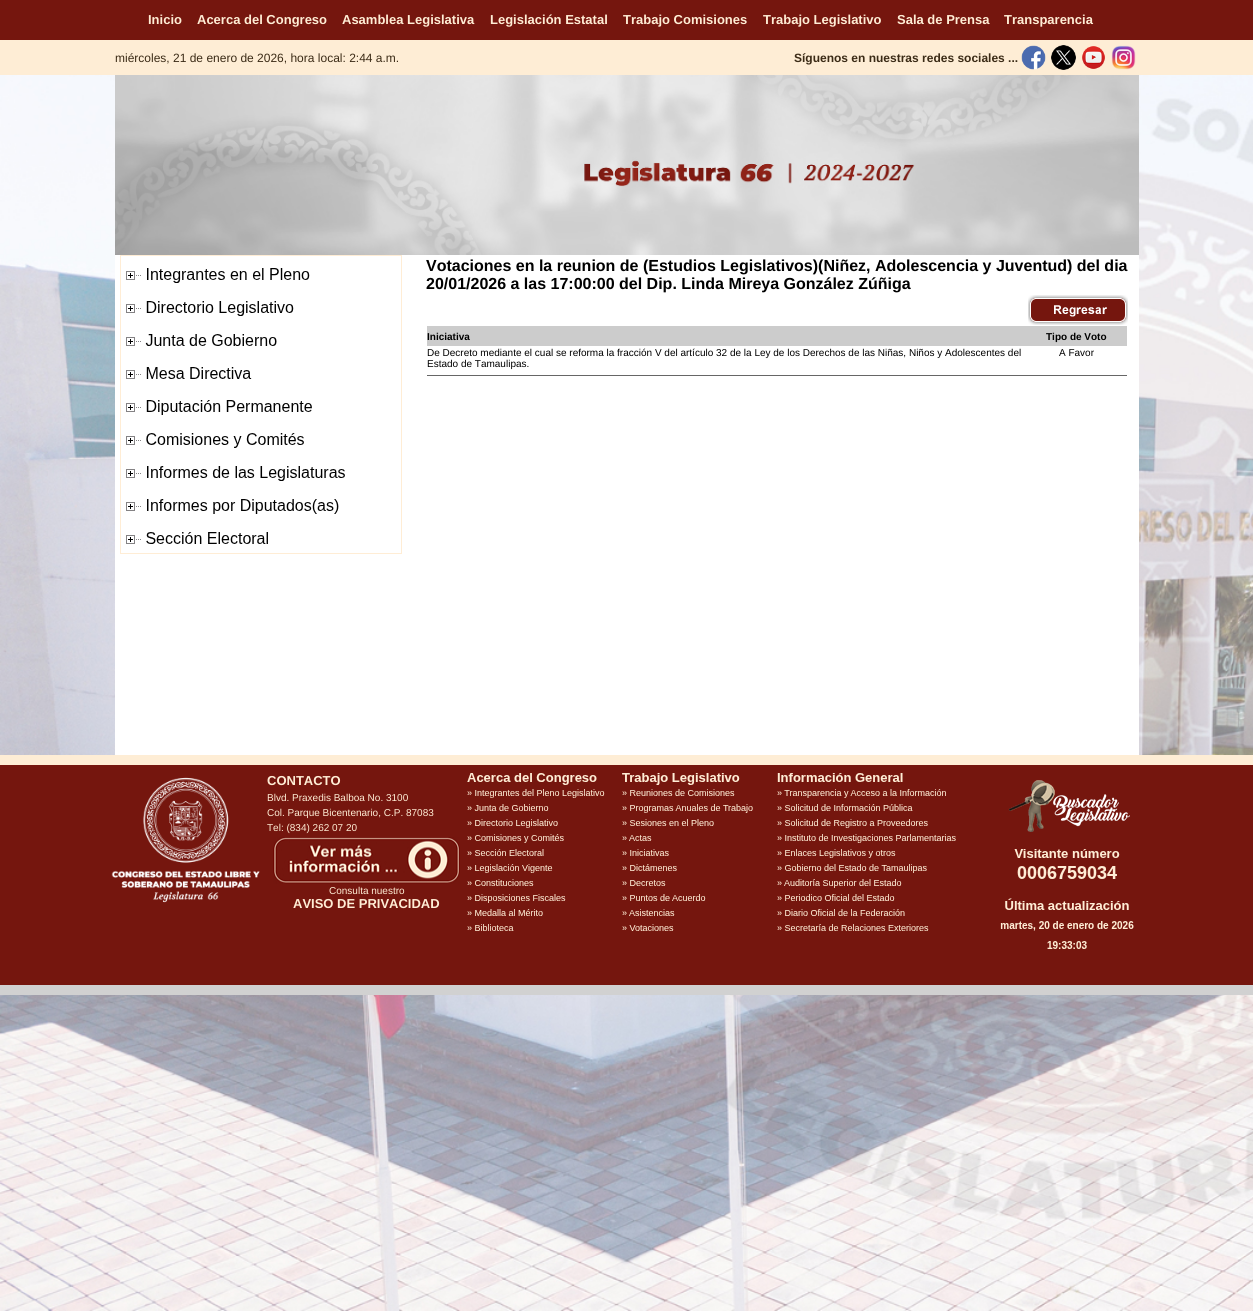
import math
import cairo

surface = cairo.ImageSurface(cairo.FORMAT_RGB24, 1253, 1311)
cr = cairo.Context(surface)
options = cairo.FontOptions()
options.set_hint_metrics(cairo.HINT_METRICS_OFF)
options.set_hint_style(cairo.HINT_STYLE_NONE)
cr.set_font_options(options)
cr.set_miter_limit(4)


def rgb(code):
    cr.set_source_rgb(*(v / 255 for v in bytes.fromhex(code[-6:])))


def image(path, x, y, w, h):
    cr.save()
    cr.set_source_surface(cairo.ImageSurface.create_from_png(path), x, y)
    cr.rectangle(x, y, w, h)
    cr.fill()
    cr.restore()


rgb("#ffffff")
cr.paint()
image("img/1.png", 0, 75, 1253, 1236)
rgb("#75160e")
cr.rectangle(0, 0, 1253, 40)
cr.fill()
rgb("#feedd5")
cr.rectangle(0, 40, 1253, 35)
cr.fill()
image("img/2.png", 1021, 45, 25, 25)
image("img/3.png", 1051, 45, 25, 25)
image("img/4.png", 1082, 46, 23, 23)
image("img/5.png", 1111, 45, 25, 25)
image("img/6.png", 115, 75, 1024, 180)
rgb("#ffffff")
cr.rectangle(115, 255, 1024, 500)
cr.fill()
image("img/7.png", 120, 255, 282, 299)
image("img/8.png", 1028, 295, 100, 30)
for x, y, w, h, color in [
    (427, 326, 700, 20, "#cccccc"),
    (427, 375, 700, 1, "#666666"),
    (0, 755, 1253, 10, "#feedd5"),
    (0, 765, 1253, 220, "#75160e"),
]:
    rgb(color)
    cr.rectangle(x, y, w, h)
    cr.fill()
image("img/9.png", 111, 777, 149, 126)
image("img/10.png", 273, 837, 187, 47)
image("img/11.png", 467, 773, 489, 158)
image("img/12.png", 1008, 780, 122, 52)
image("img/13.png", 1014, 849, 106, 30)
image("img/14.png", 1000, 898, 134, 51)
rgb("#d1d1d1")
cr.rectangle(0, 985, 1253, 10)
cr.fill()
cr.select_font_face("Liberation Sans", cairo.FONT_SLANT_NORMAL, cairo.FONT_WEIGHT_BOLD)
cr.set_font_size(13)
rgb("#ffedd5")
for x, y, s in [
    (148, 24, "Inicio"),
    (197, 24, "Acerca del Congreso"),
    (342, 24, "Asamblea Legislativa"),
    (490, 24, "Legislación Estatal"),
    (623, 24, "Trabajo Comisiones"),
    (763, 24, "Trabajo Legislativo"),
    (897, 24, "Sala de Prensa"),
    (1004, 24, "Transparencia"),
]:
    cr.move_to(x, y)
    cr.show_text(s)
cr.select_font_face("Liberation Sans")
cr.set_font_size(12)
rgb("#3b2b16")
cr.move_to(115, 62)
cr.show_text("miércoles, 21 de enero de 2026, hora local: 2:44 a.m.")
cr.select_font_face("Liberation Sans", cairo.FONT_SLANT_NORMAL, cairo.FONT_WEIGHT_BOLD)
cr.move_to(794, 62)
cr.show_text("Síguenos en nuestras redes sociales ...")
cr.set_font_size(16)
rgb("#000000")
cr.move_to(426, 271)
cr.show_text("Votaciones en la reunion de (Estudios Legislativos)(Niñez, Adolescencia y Juventud) del dia")
cr.move_to(426, 289)
cr.show_text("20/01/2026 a las 17:00:00 del Dip. Linda Mireya González Zúñiga")
cr.set_font_size(10)
cr.move_to(427, 340)
cr.show_text("Iniciativa")
cr.move_to(1046, 340)
cr.show_text("Tipo de Voto")
cr.select_font_face("Liberation Sans")
for x, y, s in [
    (427, 356, "De Decreto mediante el cual se reforma la fracción V del artículo 32 de la Ley de los Derechos de las Niñas, Niños y Adolescentes del"),
    (427, 367, "Estado de Tamaulipas."),
    (1059, 356, "A Favor"),
]:
    cr.move_to(x, y)
    cr.show_text(s)
cr.select_font_face("Liberation Sans", cairo.FONT_SLANT_NORMAL, cairo.FONT_WEIGHT_BOLD)
cr.set_font_size(13)
rgb("#ffedd5")
cr.move_to(267, 785)
cr.show_text("CONTACTO")
cr.select_font_face("Liberation Sans")
cr.set_font_size(10)
for x, y, s in [
    (267, 801, "Blvd. Praxedis Balboa No. 3100"),
    (267, 816, "Col. Parque Bicentenario, C.P. 87083"),
    (267, 831, "Tel: (834) 262 07 20"),
    (329, 894, "Consulta nuestro"),
]:
    cr.move_to(x, y)
    cr.show_text(s)
cr.select_font_face("Liberation Sans", cairo.FONT_SLANT_NORMAL, cairo.FONT_WEIGHT_BOLD)
cr.set_font_size(13)
cr.move_to(293, 908)
cr.show_text("AVISO DE PRIVACIDAD")
surface.write_to_png("page.png")
